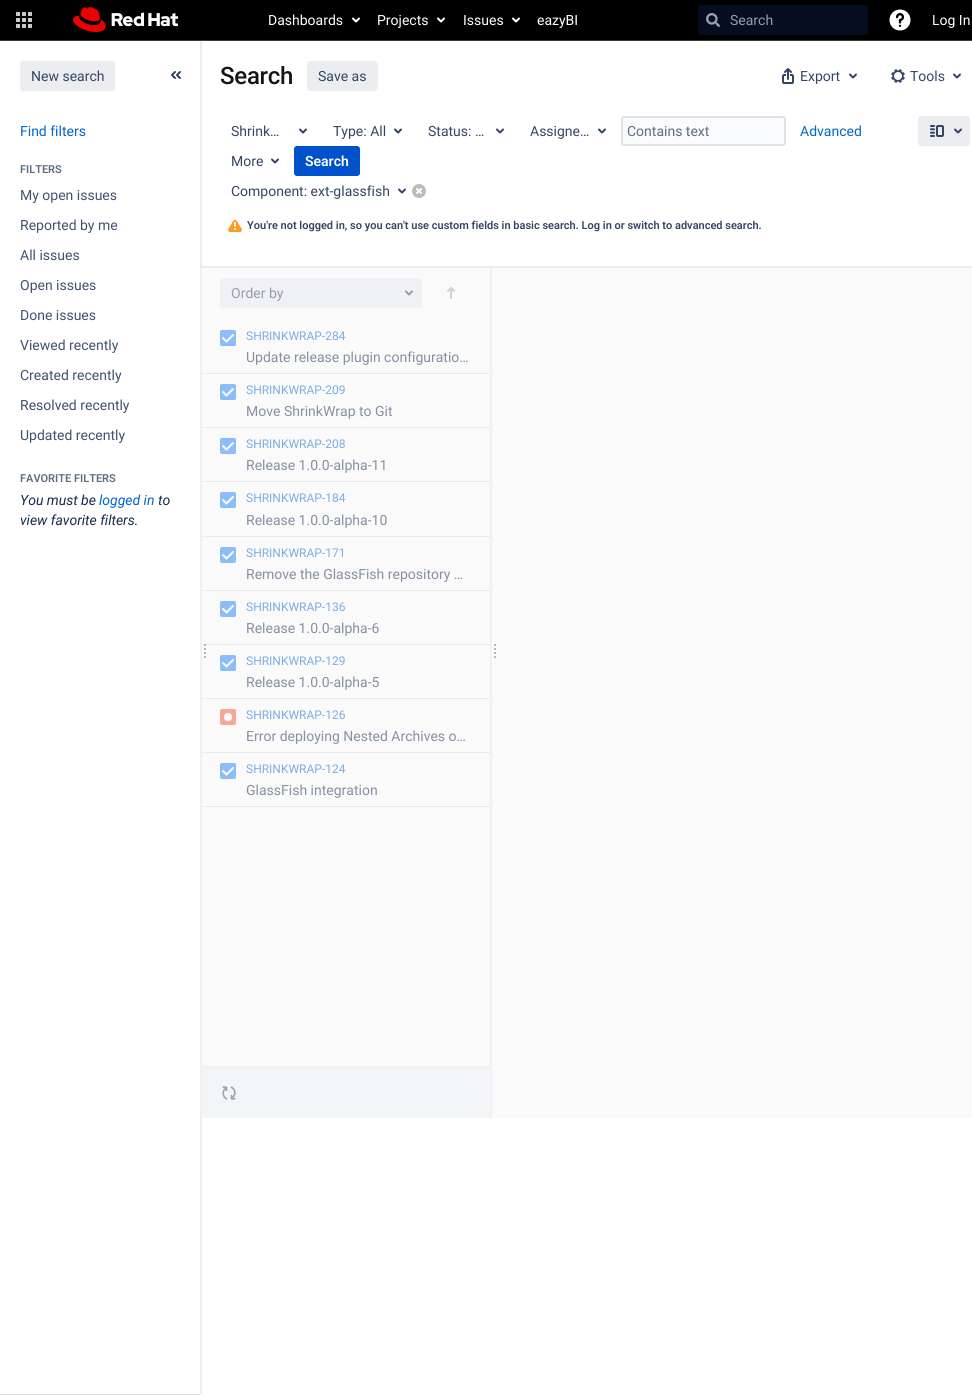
import math
import cairo

surface = cairo.ImageSurface(cairo.FORMAT_RGB24, 972, 1395)
cr = cairo.Context(surface)
options = cairo.FontOptions()
options.set_hint_metrics(cairo.HINT_METRICS_OFF)
options.set_hint_style(cairo.HINT_STYLE_NONE)
cr.set_font_options(options)
cr.set_miter_limit(4)


def rgb(code):
    cr.set_source_rgb(*(v / 255 for v in bytes.fromhex(code[-6:])))


def tracked(x, y, s, letter, word):
    cr.move_to(x, y)
    for ch in s:
        cr.show_text(ch)
        cr.rel_move_to(letter + word * (ch == ' '), 0)


def rrect(x, y, w, h, r):
    cr.new_sub_path()
    for i, (u, v) in enumerate([(x + w - r, y + h - r), (x + r, y + h - r), (x + r, y + r), (x + w - r, y + r)]):
        cr.arc(u, v, r, i * math.pi / 2, (i + 1) * math.pi / 2)
    cr.close_path()


def image(path, x, y, w, h):
    cr.save()
    cr.set_source_surface(cairo.ImageSurface.create_from_png(path), x, y)
    cr.rectangle(x, y, w, h)
    cr.fill()
    cr.restore()


rgb("#ffffff")
cr.paint()
rgb("#000000")
cr.rectangle(0, 0, 972, 40)
cr.fill()
rgb("#3c3f42")
cr.rectangle(0, 40, 972, 1)
cr.fill()
image("img/1.png", 16, 12, 16, 16)
image("img/2.png", 73, 7, 105, 25)
image("img/3.png", 352, 17, 8, 6)
image("img/3.png", 437, 17, 8, 6)
image("img/3.png", 512, 17, 8, 6)
rgb("#040e20")
rrect(698, 5, 170, 30, 3)
cr.fill()
image("img/4.png", 706, 13, 14, 14)
image("img/5.png", 889, 9, 22, 22)
rgb("#fafafb")
cr.rectangle(202, 268, 770, 850)
cr.fill()
rgb("#dddddd")
cr.rectangle(0, 1394, 200, 1)
cr.fill()
rgb("#ebedf0")
rrect(20, 61, 95, 30, 3)
cr.fill()
image("img/6.png", 171, 71, 10, 8)
for x, y, w, h, color in [
    (200, 266, 772, 2, "#ebecf0"),
    (200, 373, 290, 1, "#eaebee"),
    (200, 427, 290, 1, "#eaebee"),
    (200, 481, 290, 1, "#eaebee"),
    (200, 536, 290, 1, "#eaebee"),
    (200, 590, 290, 1, "#eaebee"),
    (200, 644, 290, 1, "#eaebee"),
    (200, 698, 290, 1, "#eaebee"),
    (200, 752, 290, 1, "#eaebee"),
    (200, 806, 290, 1, "#eaebee"),
    (200, 1066, 290, 2, "#f0f1f4"),
    (200, 41, 2, 1353, "#ebecf0"),
    (200, 268, 2, 850, "#f0f1f4"),
]:
    rgb(color)
    cr.rectangle(x, y, w, h)
    cr.fill()
image("img/7.png", 204, 644, 2, 14)
rgb("#ebedf0")
rrect(307, 61, 71, 30, 3)
cr.fill()
image("img/8.png", 782, 68, 12, 16)
image("img/9.png", 849, 73, 8, 6)
image("img/10.png", 891, 69, 14, 14)
image("img/9.png", 953, 73, 8, 6)
image("img/9.png", 299, 128, 8, 6)
image("img/9.png", 394, 128, 8, 6)
image("img/9.png", 496, 128, 8, 6)
image("img/9.png", 598, 128, 8, 6)
rgb("#fafbfc")
rrect(622, 117, 163, 28, 2)
cr.fill_preserve()
rgb("#dfe1e6")
cr.stroke()
image("img/9.png", 271, 158, 8, 6)
rgb("#0052cc")
rrect(294, 146, 66, 30, 3)
cr.fill()
image("img/9.png", 398, 188, 8, 6)
image("img/11.png", 412, 184, 14, 14)
rgb("#ebedf0")
rrect(918, 116, 52, 30, 3)
cr.fill()
image("img/12.png", 930, 125, 14, 12)
image("img/13.png", 954, 128, 8, 6)
image("img/14.png", 228, 220, 14, 12)
rgb("#f0f1f4")
rrect(220, 278, 202, 30, 3)
cr.fill()
image("img/15.png", 405, 290, 8, 6)
image("img/16.png", 447, 287, 8, 12)
image("img/17.png", 220, 330, 16, 16)
image("img/17.png", 220, 384, 16, 16)
image("img/17.png", 220, 438, 16, 16)
image("img/17.png", 220, 492, 16, 16)
image("img/17.png", 220, 547, 16, 16)
image("img/17.png", 220, 601, 16, 16)
image("img/17.png", 220, 655, 16, 16)
image("img/18.png", 220, 709, 16, 16)
image("img/17.png", 220, 763, 16, 16)
rgb("#f4f5f7")
cr.rectangle(202, 1068, 288, 50)
cr.fill()
image("img/19.png", 222, 1086, 14, 14)
rgb("#f0f1f4")
cr.rectangle(490, 268, 2, 850)
cr.fill()
image("img/20.png", 494, 644, 2, 14)
cr.select_font_face("Roboto")
cr.set_font_size(14)
rgb("#ffffff")
for x, y, s in [
    (268, 25, "Dashboards"),
    (377, 25, "Projects"),
    (463, 25, "Issues"),
    (537, 25, "eazyBI"),
]:
    cr.move_to(x, y)
    cr.show_text(s)
rgb("#949dad")
cr.move_to(730, 25)
cr.show_text("Search")
rgb("#ffffff")
cr.move_to(932, 25)
cr.show_text("Log In")
rgb("#344563")
cr.move_to(31, 81)
cr.show_text("New search")
rgb("#0066cc")
cr.move_to(20, 136)
cr.show_text("Find filters")
cr.select_font_face("Roboto SemiBold")
cr.set_font_size(11)
rgb("#5e6c84")
cr.move_to(20, 173)
cr.show_text("FILTERS")
cr.select_font_face("Roboto")
cr.set_font_size(14)
rgb("#42526e")
for x, y, s in [
    (20, 200, "My open issues"),
    (20, 230, "Reported by me"),
    (20, 260, "All issues"),
    (20, 290, "Open issues"),
    (20, 320, "Done issues"),
    (20, 350, "Viewed recently"),
    (20, 380, "Created recently"),
    (20, 410, "Resolved recently"),
    (20, 440, "Updated recently"),
]:
    cr.move_to(x, y)
    cr.show_text(s)
cr.select_font_face("Roboto SemiBold")
cr.set_font_size(11)
rgb("#5e6c84")
cr.move_to(20, 482)
cr.show_text("FAVORITE FILTERS")
cr.select_font_face("Roboto", cairo.FONT_SLANT_ITALIC)
cr.set_font_size(14)
rgb("#172b4d")
cr.move_to(20, 505)
cr.show_text("You must be")
rgb("#0066cc")
cr.move_to(99, 505)
cr.show_text("logged in")
rgb("#172b4d")
cr.move_to(158, 505)
cr.show_text("to")
cr.move_to(20, 525)
cr.show_text("view favorite filters.")
cr.select_font_face("Roboto Medium")
cr.set_font_size(24)
rgb("#151515")
tracked(220, 84, "Search", -0.25, 0)
cr.select_font_face("Roboto")
cr.set_font_size(14)
rgb("#344563")
for x, y, s in [
    (318, 81, "Save as"),
    (800, 81, "Export"),
    (910, 81, "Tools"),
    (231, 136, "Shrink…"),
    (333, 136, "Type: All"),
    (428, 136, "Status: …"),
    (530, 136, "Assigne…"),
]:
    cr.move_to(x, y)
    cr.show_text(s)
rgb("#5e6c84")
cr.move_to(627, 136)
cr.show_text("Contains text")
rgb("#344563")
cr.move_to(231, 166)
cr.show_text("More")
cr.select_font_face("Roboto SemiBold")
rgb("#ffffff")
cr.move_to(305, 166)
cr.show_text("Search")
cr.select_font_face("Roboto")
rgb("#344563")
cr.move_to(231, 196)
cr.show_text("Component: ext-glassfish")
rgb("#0066cc")
cr.move_to(800, 136)
cr.show_text("Advanced")
cr.select_font_face("Roboto SemiBold")
cr.set_font_size(11)
rgb("#344563")
cr.move_to(247, 229)
cr.show_text("You're not logged in, so you can't use custom fields in basic search. Log in or switch to advanced search.")
cr.select_font_face("Roboto")
cr.set_font_size(14)
rgb("#949dad")
cr.move_to(231, 298)
cr.show_text("Order by")
cr.set_font_size(12)
rgb("#7aaee2")
cr.move_to(246, 340)
cr.show_text("SHRINKWRAP-284")
cr.set_font_size(14)
rgb("#8690a2")
cr.move_to(246, 362)
cr.show_text("Update release plugin configuratio…")
cr.set_font_size(12)
rgb("#7aaee2")
cr.move_to(246, 394)
cr.show_text("SHRINKWRAP-209")
cr.set_font_size(14)
rgb("#8690a2")
cr.move_to(246, 416)
cr.show_text("Move ShrinkWrap to Git")
cr.set_font_size(12)
rgb("#7aaee2")
cr.move_to(246, 448)
cr.show_text("SHRINKWRAP-208")
cr.set_font_size(14)
rgb("#8690a2")
cr.move_to(246, 470)
cr.show_text("Release 1.0.0-alpha-11")
cr.set_font_size(12)
rgb("#7aaee2")
cr.move_to(246, 502)
cr.show_text("SHRINKWRAP-184")
cr.set_font_size(14)
rgb("#8690a2")
cr.move_to(246, 525)
cr.show_text("Release 1.0.0-alpha-10")
cr.set_font_size(12)
rgb("#7aaee2")
cr.move_to(246, 557)
cr.show_text("SHRINKWRAP-171")
cr.set_font_size(14)
rgb("#8690a2")
cr.move_to(246, 579)
cr.show_text("Remove the GlassFish repository …")
cr.set_font_size(12)
rgb("#7aaee2")
cr.move_to(246, 611)
cr.show_text("SHRINKWRAP-136")
cr.set_font_size(14)
rgb("#8690a2")
cr.move_to(246, 633)
cr.show_text("Release 1.0.0-alpha-6")
cr.set_font_size(12)
rgb("#7aaee2")
cr.move_to(246, 665)
cr.show_text("SHRINKWRAP-129")
cr.set_font_size(14)
rgb("#8690a2")
cr.move_to(246, 687)
cr.show_text("Release 1.0.0-alpha-5")
cr.set_font_size(12)
rgb("#7aaee2")
cr.move_to(246, 719)
cr.show_text("SHRINKWRAP-126")
cr.set_font_size(14)
rgb("#8690a2")
cr.move_to(246, 741)
cr.show_text("Error deploying Nested Archives o…")
cr.set_font_size(12)
rgb("#7aaee2")
cr.move_to(246, 773)
cr.show_text("SHRINKWRAP-124")
cr.set_font_size(14)
rgb("#8690a2")
cr.move_to(246, 795)
cr.show_text("GlassFish integration")
surface.write_to_png("page.png")
